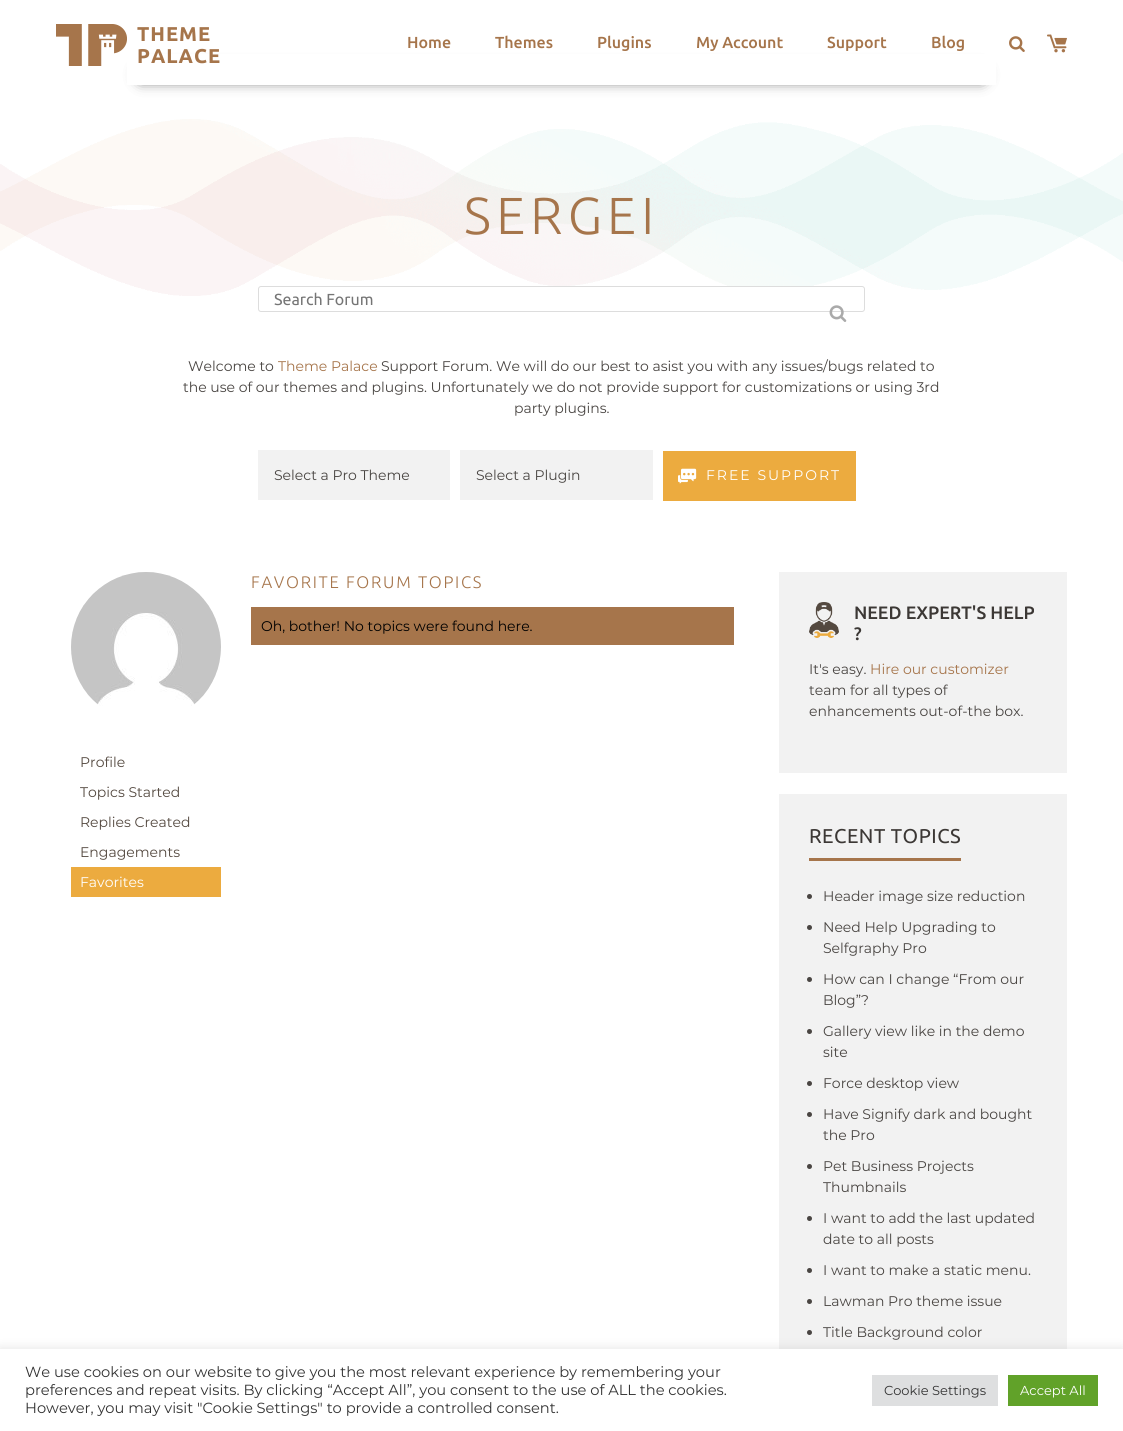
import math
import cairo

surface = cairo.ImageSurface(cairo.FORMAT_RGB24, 1123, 1431)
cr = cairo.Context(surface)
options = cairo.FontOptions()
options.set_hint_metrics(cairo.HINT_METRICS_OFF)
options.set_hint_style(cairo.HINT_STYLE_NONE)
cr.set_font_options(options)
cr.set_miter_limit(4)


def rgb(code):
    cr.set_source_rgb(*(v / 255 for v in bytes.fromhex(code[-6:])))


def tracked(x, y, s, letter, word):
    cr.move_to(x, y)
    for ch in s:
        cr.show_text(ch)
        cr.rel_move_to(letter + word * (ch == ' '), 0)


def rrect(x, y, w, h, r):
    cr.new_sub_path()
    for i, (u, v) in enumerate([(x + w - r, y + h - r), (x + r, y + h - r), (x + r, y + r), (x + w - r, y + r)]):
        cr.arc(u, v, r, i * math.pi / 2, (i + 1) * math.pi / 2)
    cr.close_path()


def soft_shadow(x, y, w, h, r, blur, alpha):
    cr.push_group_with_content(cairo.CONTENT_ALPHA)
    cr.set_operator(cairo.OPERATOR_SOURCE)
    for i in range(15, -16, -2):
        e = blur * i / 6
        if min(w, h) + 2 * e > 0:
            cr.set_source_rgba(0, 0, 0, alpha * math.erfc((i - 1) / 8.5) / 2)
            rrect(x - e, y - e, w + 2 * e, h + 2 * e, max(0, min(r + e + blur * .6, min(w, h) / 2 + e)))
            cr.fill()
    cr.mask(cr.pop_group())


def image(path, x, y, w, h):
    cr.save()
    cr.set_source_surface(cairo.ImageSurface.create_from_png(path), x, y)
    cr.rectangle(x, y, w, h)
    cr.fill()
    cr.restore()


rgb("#ffffff")
cr.paint()
rgb("#000000")
soft_shadow(140, 70, 843, 10, 5, 7, 0.8)
rgb("#ffffff")
cr.rectangle(127, 54, 869, 31)
cr.fill()
image("img/1.png", 56, 24, 71, 42)
image("img/2.png", 1009, 36, 16, 16)
image("img/3.png", 1047, 34, 20, 19)
image("img/4.png", 0, 119, 1123, 167)
image("img/5.png", 0, 122, 1123, 174)
rrect(258.5, 286.5, 606, 25, 2.5)
rgb("#dddddd")
cr.set_line_width(1)
cr.stroke()
image("img/6.png", 829, 305, 18, 17)
for x, y, w, h, color in [
    (258, 450, 192, 50, "#f2f2f2"),
    (460, 450, 193, 50, "#f2f2f2"),
    (663, 451, 193, 50, "#ecab3f"),
]:
    rgb(color)
    cr.rectangle(x, y, w, h)
    cr.fill()
image("img/7.png", 678, 468, 19, 16)
rgb("#a6754b")
cr.rectangle(251, 607, 483, 38)
cr.fill()
image("img/8.png", 71, 572, 150, 134)
rgb("#ecab3f")
cr.rectangle(71, 867, 150, 30)
cr.fill()
rgb("#f2f2f2")
cr.rectangle(779, 572, 288, 201)
cr.fill()
image("img/9.png", 809, 602, 30, 36)
cr.rectangle(779, 794, 288, 555)
cr.fill()
rgb("#a6754b")
cr.rectangle(809, 858, 152, 3)
cr.fill()
rgb("#494542")
cr.arc(809.5, 896.5, 2.5, 0, 2 * math.pi)
cr.fill()
cr.arc(809.5, 927.5, 2.5, 0, 2 * math.pi)
cr.fill()
cr.arc(809.5, 979.5, 2.5, 0, 2 * math.pi)
cr.fill()
cr.arc(809.5, 1031.5, 2.5, 0, 2 * math.pi)
cr.fill()
cr.arc(809.5, 1083.5, 2.5, 0, 2 * math.pi)
cr.fill()
cr.arc(809.5, 1114.5, 2.5, 0, 2 * math.pi)
cr.fill()
cr.arc(809.5, 1166.5, 2.5, 0, 2 * math.pi)
cr.fill()
cr.arc(809.5, 1218.5, 2.5, 0, 2 * math.pi)
cr.fill()
cr.arc(809.5, 1270.5, 2.5, 0, 2 * math.pi)
cr.fill()
cr.arc(809.5, 1301.5, 2.5, 0, 2 * math.pi)
cr.fill()
cr.arc(809.5, 1332.5, 2.5, 0, 2 * math.pi)
cr.fill()
rgb("#acabab")
soft_shadow(0, 1348, 1123, 82, 0, 5, 0.3)
for x, y, w, h, color in [
    (0, 1349, 1123, 82, "#ffffff"),
    (872, 1375, 126, 31, "#dedfe0"),
    (1008, 1375, 90, 31, "#61a229"),
]:
    rgb(color)
    cr.rectangle(x, y, w, h)
    cr.fill()
cr.select_font_face("Ubuntu", cairo.FONT_SLANT_NORMAL, cairo.FONT_WEIGHT_BOLD)
cr.set_font_size(20)
rgb("#a6754b")
tracked(137, 41, "THEME", 1, 0)
tracked(137, 63, "PALACE", 1, 0)
cr.select_font_face("Ubuntu Medium")
cr.set_font_size(16)
for x, y, s in [
    (407, 48, "Home"),
    (495, 48, "Themes"),
    (597, 48, "Plugins"),
    (696, 48, "My Account"),
    (827, 48, "Support"),
    (931, 48, "Blog"),
]:
    cr.move_to(x, y)
    cr.show_text(s)
cr.select_font_face("Ubuntu Light")
cr.set_font_size(52)
tracked(464, 234, "SERGEI", 5.25, 0)
cr.select_font_face("Ubuntu")
cr.set_font_size(16)
rgb("#757575")
cr.move_to(274, 305)
cr.show_text("Search Forum")
cr.select_font_face("Montserrat")
cr.set_font_size(14)
rgb("#494542")
cr.move_to(188, 371)
cr.show_text("Welcome to")
rgb("#a6754b")
cr.move_to(278, 371)
cr.show_text("Theme Palace")
rgb("#494542")
for x, y, s in [
    (381, 371, "Support Forum. We will do our best to asist you with any issues/bugs related to"),
    (183, 392, "the use of our themes and plugins. Unfortunately we do not provide support for customizations or using 3rd"),
    (514, 413, "party plugins."),
    (274, 480, "Select a Pro Theme"),
    (476, 480, "Select a Plugin"),
]:
    cr.move_to(x, y)
    cr.show_text(s)
rgb("#ffffff")
tracked(706, 480, "FREE SUPPORT", 2, 0)
cr.select_font_face("Ubuntu Light")
cr.set_font_size(16.75)
rgb("#a6754b")
tracked(251, 588, "FAVORITE FORUM TOPICS", 1.7, 0)
cr.select_font_face("Montserrat")
cr.set_font_size(14)
rgb("#000000")
cr.move_to(261, 631)
cr.show_text("Oh, bother! No topics were found here.")
rgb("#544940")
for x, y, s in [
    (80, 767, "Profile"),
    (80, 797, "Topics Started"),
    (80, 827, "Replies Created"),
    (80, 857, "Engagements"),
]:
    cr.move_to(x, y)
    cr.show_text(s)
rgb("#ffffff")
cr.move_to(80, 887)
cr.show_text("Favorites")
cr.select_font_face("Ubuntu Medium")
cr.set_font_size(18)
rgb("#3c3835")
cr.move_to(854, 619)
cr.show_text("NEED EXPERT'S HELP")
cr.move_to(854, 640)
cr.show_text("?")
cr.select_font_face("Montserrat")
cr.set_font_size(14)
rgb("#494542")
cr.move_to(809, 674)
cr.show_text("It's easy.")
rgb("#a6754b")
cr.move_to(870, 674)
cr.show_text("Hire our customizer")
rgb("#494542")
cr.move_to(809, 695)
cr.show_text("team for all types of")
cr.move_to(809, 716)
cr.show_text("enhancements out-of-the box.")
cr.select_font_face("Ubuntu")
cr.set_font_size(20)
rgb("#3c3835")
tracked(809, 843, "RECENT TOPICS", 0.5, 0)
cr.select_font_face("Montserrat")
cr.set_font_size(14)
rgb("#494542")
for x, y, s in [
    (823, 901, "Header image size reduction"),
    (823, 932, "Need Help Upgrading to"),
    (823, 953, "Selfgraphy Pro"),
    (823, 984, "How can I change “From our"),
    (823, 1005, "Blog”?"),
    (823, 1036, "Gallery view like in the demo"),
    (823, 1057, "site"),
    (823, 1088, "Force desktop view"),
    (823, 1119, "Have Signify dark and bought"),
    (823, 1140, "the Pro"),
    (823, 1171, "Pet Business Projects"),
    (823, 1192, "Thumbnails"),
    (823, 1223, "I want to add the last updated"),
    (823, 1244, "date to all posts"),
    (823, 1275, "I want to make a static menu."),
    (823, 1306, "Lawman Pro theme issue"),
    (823, 1337, "Title Background color"),
]:
    cr.move_to(x, y)
    cr.show_text(s)
cr.set_font_size(14.65)
rgb("#333333")
for x, y, s in [
    (25, 1377, "We use cookies on our website to give you the most relevant experience by remembering your"),
    (25, 1395, "preferences and repeat visits. By clicking “Accept All”, you consent to the use of ALL the cookies."),
    (25, 1413, "However, you may visit \"Cookie Settings\" to provide a controlled consent."),
]:
    cr.move_to(x, y)
    cr.show_text(s)
cr.set_font_size(13)
cr.move_to(884, 1395)
cr.show_text("Cookie Settings")
rgb("#ffffff")
cr.move_to(1020, 1395)
cr.show_text("Accept All")
surface.write_to_png("page.png")
